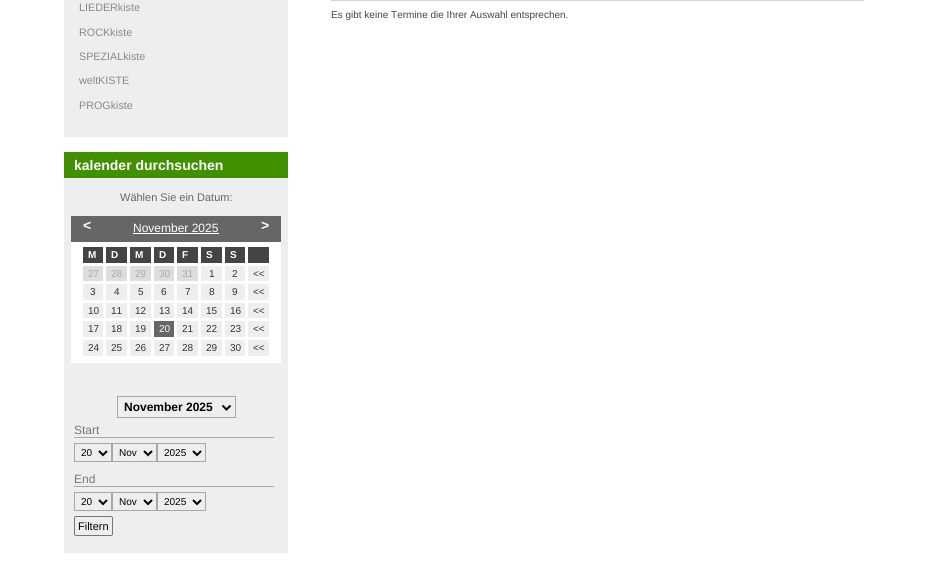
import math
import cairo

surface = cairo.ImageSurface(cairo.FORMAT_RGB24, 928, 587)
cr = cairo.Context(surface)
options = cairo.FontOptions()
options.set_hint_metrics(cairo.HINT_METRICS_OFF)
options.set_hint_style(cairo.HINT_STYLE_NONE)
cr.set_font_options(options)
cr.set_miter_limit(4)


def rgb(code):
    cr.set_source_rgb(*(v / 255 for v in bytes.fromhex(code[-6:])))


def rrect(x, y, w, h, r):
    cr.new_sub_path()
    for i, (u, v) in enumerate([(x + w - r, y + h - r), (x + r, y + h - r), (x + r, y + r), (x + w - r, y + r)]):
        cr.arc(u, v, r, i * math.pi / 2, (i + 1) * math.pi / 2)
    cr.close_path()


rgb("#ffffff")
cr.paint()
for x, y, w, h, color in [
    (64, 0, 224, 137, "#eeeeee"),
    (64, 178, 224, 375, "#eeeeee"),
    (64, 152, 224, 26, "#409000"),
    (71, 242, 210, 121, "#ffffff"),
    (71, 216, 210, 26, "#666666"),
    (133, 233, 86, 1, "#ffffff"),
    (83, 247, 20, 16, "#444444"),
    (106, 247, 21, 16, "#444444"),
    (130, 247, 21, 16, "#444444"),
    (154, 247, 20, 16, "#444444"),
    (177, 247, 21, 16, "#444444"),
    (201, 247, 21, 16, "#444444"),
    (225, 247, 20, 16, "#444444"),
    (248, 247, 21, 16, "#444444"),
    (83, 266, 20, 15, "#dddddd"),
    (106, 266, 21, 15, "#dddddd"),
    (130, 266, 21, 15, "#dddddd"),
    (154, 266, 20, 15, "#dddddd"),
    (177, 266, 21, 15, "#dddddd"),
    (201, 266, 21, 15, "#eeeeee"),
    (225, 266, 20, 15, "#eeeeee"),
    (248, 266, 21, 15, "#eeeeee"),
    (83, 284, 20, 16, "#eeeeee"),
    (106, 284, 21, 16, "#eeeeee"),
    (130, 284, 21, 16, "#eeeeee"),
    (154, 284, 20, 16, "#eeeeee"),
    (177, 284, 21, 16, "#eeeeee"),
    (201, 284, 21, 16, "#eeeeee"),
    (225, 284, 20, 16, "#eeeeee"),
    (248, 284, 21, 16, "#eeeeee"),
    (83, 303, 20, 15, "#eeeeee"),
    (106, 303, 21, 15, "#eeeeee"),
    (130, 303, 21, 15, "#eeeeee"),
    (154, 303, 20, 15, "#eeeeee"),
    (177, 303, 21, 15, "#eeeeee"),
    (201, 303, 21, 15, "#eeeeee"),
    (225, 303, 20, 15, "#eeeeee"),
    (248, 303, 21, 15, "#eeeeee"),
    (83, 321, 20, 16, "#eeeeee"),
    (106, 321, 21, 16, "#eeeeee"),
    (130, 321, 21, 16, "#eeeeee"),
    (154, 321, 20, 16, "#666666"),
    (177, 321, 21, 16, "#eeeeee"),
    (201, 321, 21, 16, "#eeeeee"),
    (225, 321, 20, 16, "#eeeeee"),
    (248, 321, 21, 16, "#eeeeee"),
    (83, 340, 20, 16, "#eeeeee"),
    (106, 340, 21, 16, "#eeeeee"),
    (130, 340, 21, 16, "#eeeeee"),
    (154, 340, 20, 16, "#eeeeee"),
    (177, 340, 21, 16, "#eeeeee"),
    (201, 340, 21, 16, "#eeeeee"),
    (225, 340, 20, 16, "#eeeeee"),
    (248, 340, 21, 16, "#eeeeee"),
]:
    rgb(color)
    cr.rectangle(x, y, w, h)
    cr.fill()
cr.rectangle(117.5, 396.5, 118, 21)
rgb("#a7a7a7")
cr.set_line_width(1)
cr.stroke()
cr.new_path()
cr.move_to(222.5, 405.5)
cr.line_to(226.5, 409.5)
cr.line_to(230.5, 405.5)
rgb("#000000")
cr.set_line_width(2)
cr.stroke()
rgb("#aaaaaa")
cr.rectangle(74, 437, 200, 1)
cr.fill()
cr.rectangle(74.5, 443.5, 37, 18)
rgb("#a7a7a7")
cr.set_line_width(1)
cr.stroke()
cr.new_path()
cr.move_to(99, 451)
cr.line_to(103, 455)
cr.line_to(107, 451)
rgb("#000000")
cr.set_line_width(2)
cr.stroke()
cr.rectangle(112.5, 443.5, 44, 18)
rgb("#a7a7a7")
cr.set_line_width(1)
cr.stroke()
cr.new_path()
cr.move_to(144, 451)
cr.line_to(148, 455)
cr.line_to(152, 451)
rgb("#000000")
cr.set_line_width(2)
cr.stroke()
cr.rectangle(157.5, 443.5, 48, 18)
rgb("#a7a7a7")
cr.set_line_width(1)
cr.stroke()
cr.new_path()
cr.move_to(193, 451)
cr.line_to(197, 455)
cr.line_to(201, 451)
rgb("#000000")
cr.set_line_width(2)
cr.stroke()
rgb("#aaaaaa")
cr.rectangle(74, 486, 200, 1)
cr.fill()
cr.rectangle(74.5, 492.5, 37, 18)
rgb("#a7a7a7")
cr.set_line_width(1)
cr.stroke()
cr.new_path()
cr.move_to(99, 500)
cr.line_to(103, 504)
cr.line_to(107, 500)
rgb("#000000")
cr.set_line_width(2)
cr.stroke()
cr.rectangle(112.5, 492.5, 44, 18)
rgb("#a7a7a7")
cr.set_line_width(1)
cr.stroke()
cr.new_path()
cr.move_to(144, 500)
cr.line_to(148, 504)
cr.line_to(152, 500)
rgb("#000000")
cr.set_line_width(2)
cr.stroke()
cr.rectangle(157.5, 492.5, 48, 18)
rgb("#a7a7a7")
cr.set_line_width(1)
cr.stroke()
cr.new_path()
cr.move_to(193, 500)
cr.line_to(197, 504)
cr.line_to(201, 500)
rgb("#000000")
cr.set_line_width(2)
cr.stroke()
rrect(74.5, 516.5, 38, 19, 1.5)
rgb("#767676")
cr.set_line_width(1)
cr.stroke()
rgb("#d4d4d4")
cr.rectangle(331, 0, 533, 1)
cr.fill()
cr.select_font_face("Liberation Sans")
cr.set_font_size(10.75)
rgb("#898989")
for x, y, s in [
    (79, 11, "LIEDERkiste"),
    (79, 36, "ROCKkiste"),
    (79, 60, "SPEZIALkiste"),
    (79, 84, "weltKISTE"),
    (79, 109, "PROGkiste"),
]:
    cr.move_to(x, y)
    cr.show_text(s)
cr.select_font_face("Liberation Sans", cairo.FONT_SLANT_NORMAL, cairo.FONT_WEIGHT_BOLD)
cr.set_font_size(14)
rgb("#ffffff")
cr.move_to(74, 170)
cr.show_text("kalender durchsuchen")
cr.select_font_face("Liberation Sans")
cr.set_font_size(11)
rgb("#666666")
cr.move_to(120, 201)
cr.show_text("Wählen Sie ein Datum:")
cr.select_font_face("Liberation Sans", cairo.FONT_SLANT_NORMAL, cairo.FONT_WEIGHT_BOLD)
cr.set_font_size(14)
rgb("#ffffff")
cr.move_to(83, 230)
cr.show_text("<")
cr.select_font_face("Liberation Sans")
cr.set_font_size(12)
cr.move_to(133, 232)
cr.show_text("November 2025")
cr.select_font_face("Liberation Sans", cairo.FONT_SLANT_NORMAL, cairo.FONT_WEIGHT_BOLD)
cr.set_font_size(14)
cr.move_to(261, 230)
cr.show_text(">")
cr.set_font_size(10)
for x, y, s in [
    (88, 258, "M"),
    (111, 258, "D"),
    (135, 258, "M"),
    (159, 258, "D"),
    (182, 258, "F"),
    (206, 258, "S"),
    (230, 258, "S"),
]:
    cr.move_to(x, y)
    cr.show_text(s)
cr.select_font_face("Liberation Sans")
rgb("#aaaaaa")
for x, y, s in [
    (88, 277, "27"),
    (111, 277, "28"),
    (135, 277, "29"),
    (159, 277, "30"),
    (182, 277, "31"),
]:
    cr.move_to(x, y)
    cr.show_text(s)
rgb("#333333")
for x, y, s in [
    (209, 277, "1"),
    (232, 277, "2"),
    (253, 277, "<<"),
    (90, 295, "3"),
    (114, 295, "4"),
    (138, 295, "5"),
    (161, 295, "6"),
    (185, 295, "7"),
    (209, 295, "8"),
    (232, 295, "9"),
    (253, 295, "<<"),
    (88, 314, "10"),
    (111, 314, "11"),
    (135, 314, "12"),
    (159, 314, "13"),
    (182, 314, "14"),
    (206, 314, "15"),
    (230, 314, "16"),
    (253, 314, "<<"),
    (88, 332, "17"),
    (111, 332, "18"),
    (135, 332, "19"),
]:
    cr.move_to(x, y)
    cr.show_text(s)
rgb("#ffffff")
cr.move_to(159, 332)
cr.show_text("20")
rgb("#333333")
for x, y, s in [
    (182, 332, "21"),
    (206, 332, "22"),
    (230, 332, "23"),
    (253, 332, "<<"),
    (88, 351, "24"),
    (111, 351, "25"),
    (135, 351, "26"),
    (159, 351, "27"),
    (182, 351, "28"),
    (206, 351, "29"),
    (230, 351, "30"),
    (253, 351, "<<"),
]:
    cr.move_to(x, y)
    cr.show_text(s)
cr.select_font_face("Liberation Sans", cairo.FONT_SLANT_NORMAL, cairo.FONT_WEIGHT_BOLD)
cr.set_font_size(12)
rgb("#000000")
cr.move_to(124, 411)
cr.show_text("November 2025")
cr.select_font_face("Liberation Sans")
rgb("#777777")
cr.move_to(74, 434)
cr.show_text("Start")
cr.set_font_size(10)
rgb("#000000")
for x, y, s in [
    (81, 456, "20"),
    (119, 456, "Nov"),
    (164, 456, "2025"),
]:
    cr.move_to(x, y)
    cr.show_text(s)
cr.set_font_size(12)
rgb("#777777")
cr.move_to(74, 483)
cr.show_text("End")
cr.set_font_size(10)
rgb("#000000")
for x, y, s in [
    (81, 505, "20"),
    (119, 505, "Nov"),
    (164, 505, "2025"),
]:
    cr.move_to(x, y)
    cr.show_text(s)
cr.set_font_size(11)
cr.move_to(78, 530)
cr.show_text("Filtern")
cr.set_font_size(10)
rgb("#444444")
cr.move_to(331, 18)
cr.show_text("Es gibt keine Termine die Ihrer Auswahl entsprechen.")
surface.write_to_png("page.png")
